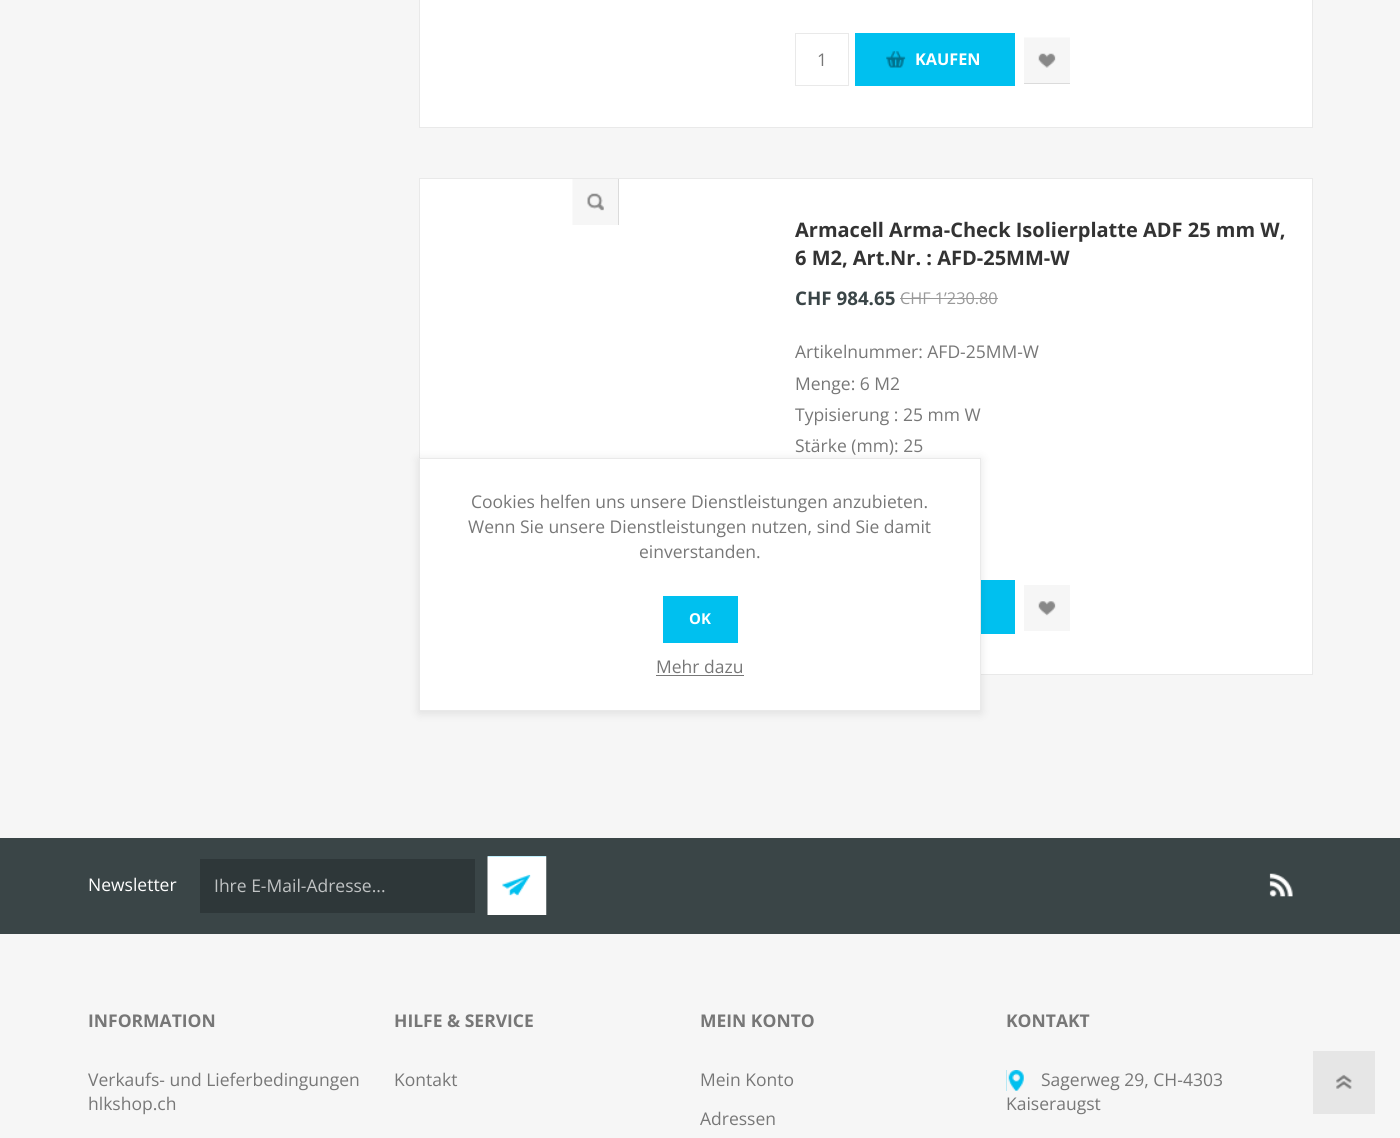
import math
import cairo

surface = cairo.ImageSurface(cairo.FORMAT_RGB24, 1400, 1138)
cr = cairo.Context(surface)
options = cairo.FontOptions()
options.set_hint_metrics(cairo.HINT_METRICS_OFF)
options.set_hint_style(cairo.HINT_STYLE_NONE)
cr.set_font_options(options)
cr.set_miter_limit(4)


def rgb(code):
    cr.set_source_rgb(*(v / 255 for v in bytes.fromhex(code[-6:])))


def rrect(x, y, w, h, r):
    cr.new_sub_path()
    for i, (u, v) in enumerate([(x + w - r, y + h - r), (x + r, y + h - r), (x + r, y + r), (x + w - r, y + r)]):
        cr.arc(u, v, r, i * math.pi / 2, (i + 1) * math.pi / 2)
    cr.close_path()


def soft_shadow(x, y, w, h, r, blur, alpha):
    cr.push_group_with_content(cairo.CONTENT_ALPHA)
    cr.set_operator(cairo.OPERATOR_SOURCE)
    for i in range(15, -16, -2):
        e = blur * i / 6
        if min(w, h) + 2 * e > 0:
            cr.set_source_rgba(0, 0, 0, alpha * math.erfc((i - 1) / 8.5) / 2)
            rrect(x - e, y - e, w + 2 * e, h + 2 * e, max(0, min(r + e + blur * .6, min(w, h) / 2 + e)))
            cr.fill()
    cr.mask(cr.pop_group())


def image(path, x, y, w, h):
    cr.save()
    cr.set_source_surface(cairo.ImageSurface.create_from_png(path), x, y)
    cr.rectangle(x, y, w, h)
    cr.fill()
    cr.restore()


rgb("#f6f6f6")
cr.paint()
rgb("#ffffff")
cr.rectangle(419.5, -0.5, 893, 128)
cr.fill_preserve()
rgb("#e9e9e9")
cr.set_line_width(1)
cr.stroke()
cr.rectangle(795.5, 33.5, 53, 52)
cr.stroke()
rgb("#00c0ef")
cr.rectangle(855, 33, 160, 53)
cr.fill()
image("img/1.png", 886, 51, 20, 17)
rgb("#888888")
cr.rectangle(1024, 53, 46, 31)
cr.fill()
image("img/2.png", 1024, 37, 46, 47)
rgb("#ffffff")
cr.rectangle(419.5, 178.5, 893, 496)
cr.fill_preserve()
rgb("#e9e9e9")
cr.stroke()
rgb("#888888")
cr.rectangle(587, 179, 32, 46)
cr.fill()
image("img/3.png", 572, 179, 47, 46)
for x, y, w, h, color in [
    (900, 298, 98, 1, "#999999"),
    (981, 580, 34, 54, "#00c0ef"),
    (1038, 601, 18, 15, "#888888"),
]:
    rgb(color)
    cr.rectangle(x, y, w, h)
    cr.fill()
image("img/4.png", 1024, 585, 46, 46)
for x, y, w, h, color in [
    (0, 838, 1400, 96, "#3a4547"),
    (200, 859, 275, 54, "#2e3739"),
    (488, 856, 58, 40, "#00c0ef"),
]:
    rgb(color)
    cr.rectangle(x, y, w, h)
    cr.fill()
image("img/5.png", 487, 856, 60, 59)
image("img/6.png", 1269, 873, 24, 24)
cr.rectangle(1006, 1070, 18, 21)
cr.fill()
image("img/7.png", 1006, 1070, 20, 21)
rgb("#000000")
soft_shadow(419, 459, 562, 254, 0, 5, 0.1)
rgb("#ffffff")
cr.rectangle(419.5, 458.5, 561, 252)
cr.fill_preserve()
rgb("#e9e9e9")
cr.stroke()
for x, y, w, h, color in [
    (663, 596, 75, 47, "#00c0ef"),
    (656, 675, 88, 1, "#777777"),
    (1313, 1051, 62, 63, "#e6e6e6"),
]:
    rgb(color)
    cr.rectangle(x, y, w, h)
    cr.fill()
image("img/8.png", 1336, 1074, 16, 15)
cr.select_font_face("Open Sans")
cr.set_font_size(17.5)
rgb("#777777")
cr.move_to(817, 66)
cr.show_text("1")
cr.select_font_face("Open Sans", cairo.FONT_SLANT_NORMAL, cairo.FONT_WEIGHT_BOLD)
cr.set_font_size(16.25)
rgb("#ffffff")
cr.move_to(915, 65)
cr.show_text("KAUFEN")
cr.set_font_size(20)
rgb("#333333")
cr.move_to(795, 237)
cr.show_text("Armacell Arma-Check Isolierplatte ADF 25 mm W,")
cr.move_to(795, 265)
cr.show_text("6 M2, Art.Nr. : AFD-25MM-W")
cr.set_font_size(18.75)
rgb("#3a4547")
cr.move_to(795, 305)
cr.show_text("CHF 984.65")
cr.select_font_face("Open Sans")
cr.set_font_size(16.25)
rgb("#999999")
cr.move_to(900, 304)
cr.show_text("CHF 1’230.80")
cr.set_font_size(17.5)
rgb("#777777")
for x, y, s in [
    (795, 358, "Artikelnummer: AFD-25MM-W"),
    (795, 390, "Menge: 6 M2"),
    (795, 421, "Typisierung : 25 mm W"),
    (795, 452, "Stärke (mm): 25"),
]:
    cr.move_to(x, y)
    cr.show_text(s)
rgb("#ffffff")
cr.move_to(88, 891)
cr.show_text("Newsletter")
rgb("#c0c3c4")
cr.move_to(214, 892)
cr.show_text("Ihre E-Mail-Adresse...")
cr.select_font_face("Open Sans", cairo.FONT_SLANT_NORMAL, cairo.FONT_WEIGHT_BOLD)
rgb("#777777")
cr.move_to(88, 1027)
cr.show_text("INFORMATION")
cr.select_font_face("Open Sans")
cr.move_to(88, 1086)
cr.show_text("Verkaufs- und Lieferbedingungen")
cr.move_to(88, 1110)
cr.show_text("hlkshop.ch")
cr.select_font_face("Open Sans", cairo.FONT_SLANT_NORMAL, cairo.FONT_WEIGHT_BOLD)
cr.move_to(394, 1027)
cr.show_text("HILFE & SERVICE")
cr.select_font_face("Open Sans")
cr.move_to(394, 1086)
cr.show_text("Kontakt")
cr.select_font_face("Open Sans", cairo.FONT_SLANT_NORMAL, cairo.FONT_WEIGHT_BOLD)
cr.move_to(700, 1027)
cr.show_text("MEIN KONTO")
cr.select_font_face("Open Sans")
cr.move_to(700, 1086)
cr.show_text("Mein Konto")
cr.move_to(700, 1125)
cr.show_text("Adressen")
cr.select_font_face("Open Sans", cairo.FONT_SLANT_NORMAL, cairo.FONT_WEIGHT_BOLD)
cr.move_to(1006, 1027)
cr.show_text("KONTAKT")
cr.select_font_face("Open Sans")
for x, y, s in [
    (1041, 1086, "Sagerweg 29, CH-4303"),
    (1006, 1110, "Kaiseraugst"),
    (471, 508, "Cookies helfen uns unsere Dienstleistungen anzubieten."),
    (468, 533, "Wenn Sie unsere Dienstleistungen nutzen, sind Sie damit"),
    (639, 558, "einverstanden."),
]:
    cr.move_to(x, y)
    cr.show_text(s)
cr.select_font_face("Open Sans", cairo.FONT_SLANT_NORMAL, cairo.FONT_WEIGHT_BOLD)
cr.set_font_size(15)
rgb("#ffffff")
cr.move_to(689, 624)
cr.show_text("OK")
cr.select_font_face("Open Sans")
cr.set_font_size(17.5)
rgb("#777777")
cr.move_to(656, 673)
cr.show_text("Mehr dazu")
surface.write_to_png("page.png")
